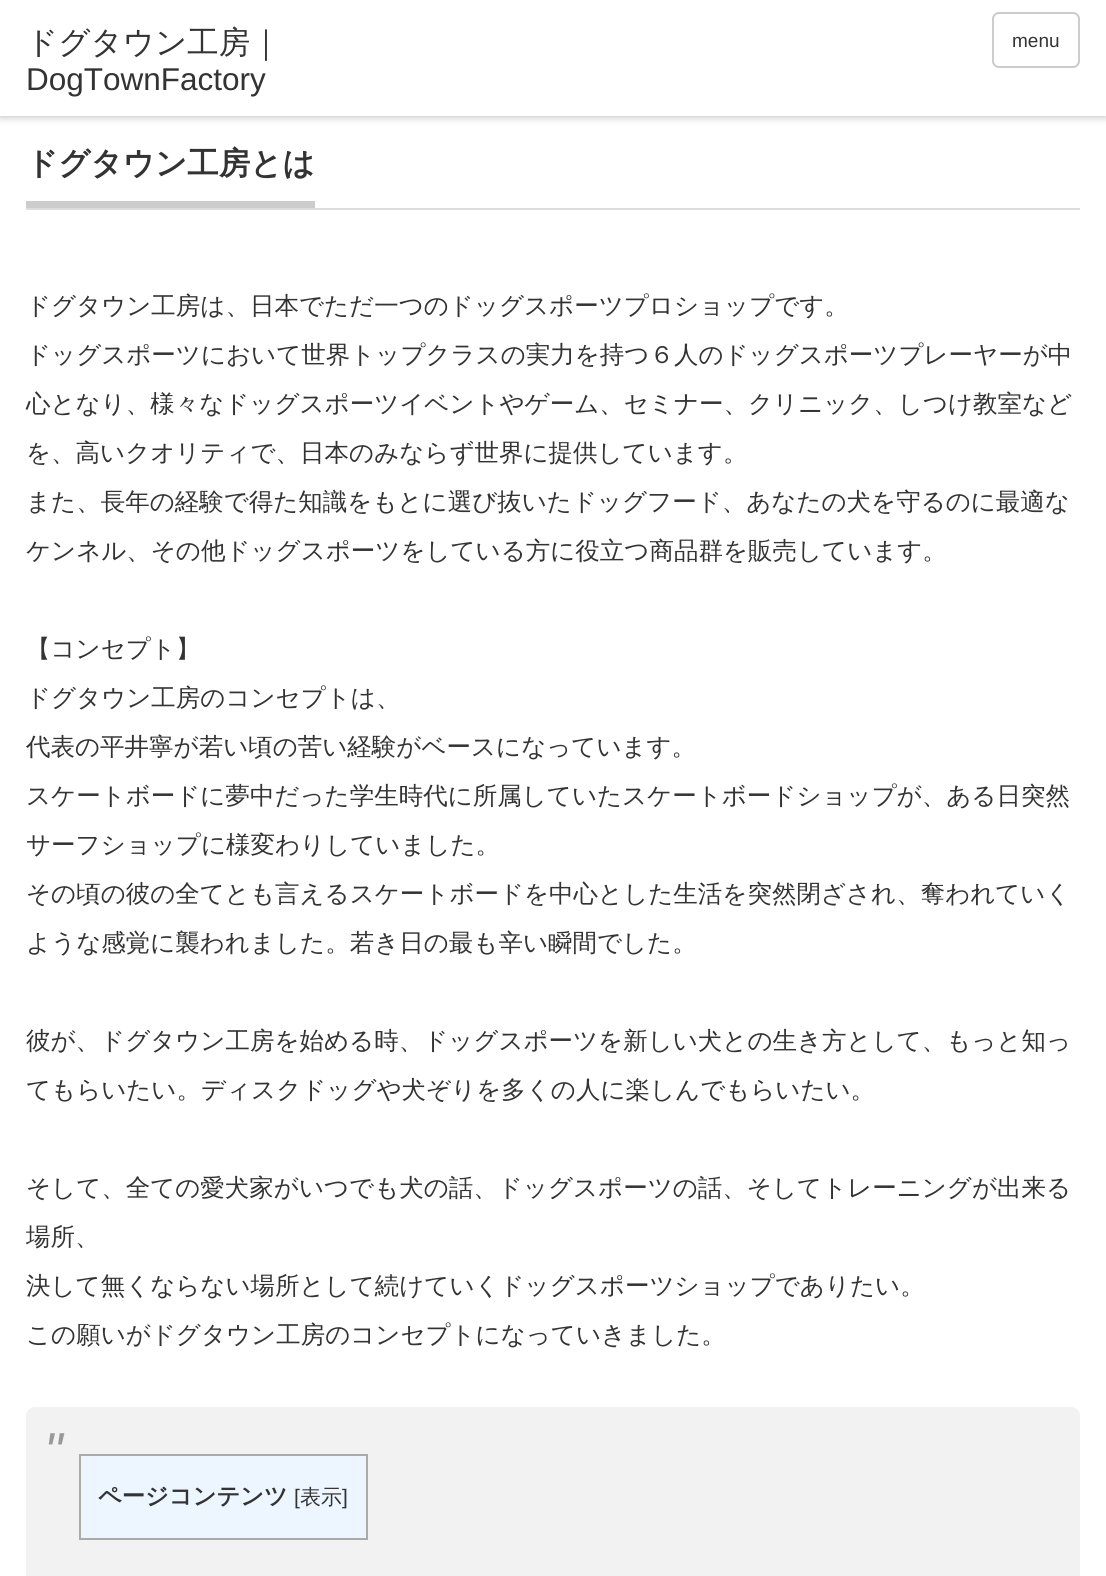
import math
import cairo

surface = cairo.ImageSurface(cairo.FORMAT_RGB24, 1106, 1576)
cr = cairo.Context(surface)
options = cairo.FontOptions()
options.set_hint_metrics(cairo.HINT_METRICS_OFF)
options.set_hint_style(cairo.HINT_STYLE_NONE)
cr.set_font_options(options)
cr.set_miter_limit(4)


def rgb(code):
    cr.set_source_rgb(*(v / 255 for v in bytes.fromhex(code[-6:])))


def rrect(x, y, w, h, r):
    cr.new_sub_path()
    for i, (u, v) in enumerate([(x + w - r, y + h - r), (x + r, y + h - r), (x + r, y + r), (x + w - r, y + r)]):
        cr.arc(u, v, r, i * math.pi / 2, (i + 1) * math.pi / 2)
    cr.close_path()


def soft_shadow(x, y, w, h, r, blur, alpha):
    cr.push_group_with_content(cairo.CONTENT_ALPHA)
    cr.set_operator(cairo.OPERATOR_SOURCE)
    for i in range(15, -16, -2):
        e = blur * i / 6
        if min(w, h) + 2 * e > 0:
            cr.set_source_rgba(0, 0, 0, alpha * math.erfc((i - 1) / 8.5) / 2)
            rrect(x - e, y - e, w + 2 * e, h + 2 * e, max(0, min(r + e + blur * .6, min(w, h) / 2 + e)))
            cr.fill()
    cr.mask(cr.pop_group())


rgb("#ffffff")
cr.paint()
rgb("#000000")
soft_shadow(0, 0, 1106, 116, 0, 4.5, 0.3)
rgb("#ffffff")
cr.rectangle(0, 0, 1106, 116)
cr.fill()
rrect(993, 13, 86, 54, 6)
rgb("#cccccc")
cr.stroke()
rgb("#dddddd")
cr.rectangle(26, 208, 1054, 2)
cr.fill()
rgb("#cccccc")
cr.rectangle(26, 201, 289, 7)
cr.fill()
rgb("#f2f2f2")
rrect(26, 1407, 1054, 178, 9)
cr.fill()
rgb("#edf6ff")
cr.rectangle(80, 1455, 287, 84)
cr.fill_preserve()
rgb("#aaaaaa")
cr.stroke()
cr.select_font_face("WenQuanYi Zen Hei Medium")
cr.set_font_size(31.5)
rgb("#333333")
cr.move_to(26, 53)
cr.show_text("ドグタウン工房｜")
cr.select_font_face("Liberation Sans")
cr.move_to(26, 90)
cr.show_text("DogTownFactory")
cr.set_font_size(19)
cr.move_to(1012, 47)
cr.show_text("menu")
cr.select_font_face("WenQuanYi Zen Hei", cairo.FONT_SLANT_NORMAL, cairo.FONT_WEIGHT_BOLD)
cr.set_font_size(31.5)
cr.move_to(26, 174)
cr.show_text("ドグタウン工房とは")
cr.select_font_face("WenQuanYi Zen Hei Medium")
cr.set_font_size(24.5)
for x, y, s in [
    (26, 314, "ドグタウン工房は、日本でただ一つのドッグスポーツプロショップです。"),
    (26, 363, "ドッグスポーツにおいて世界トップクラスの実力を持つ６人のドッグスポーツプレーヤーが中"),
    (26, 412, "心となり、様々なドッグスポーツイベントやゲーム、セミナー、クリニック、しつけ教室など"),
    (26, 461, "を、高いクオリティで、日本のみならず世界に提供しています。"),
    (26, 510, "また、長年の経験で得た知識をもとに選び抜いたドッグフード、あなたの犬を守るのに最適な"),
    (26, 559, "ケンネル、その他ドッグスポーツをしている方に役立つ商品群を販売しています。"),
    (26, 657, "【コンセプト】"),
    (26, 706, "ドグタウン工房のコンセプトは、"),
    (26, 755, "代表の平井寧が若い頃の苦い経験がベースになっています。"),
    (26, 804, "スケートボードに夢中だった学生時代に所属していたスケートボードショップが、ある日突然"),
    (26, 853, "サーフショップに様変わりしていました。"),
    (26, 902, "その頃の彼の全てとも言えるスケートボードを中心とした生活を突然閉ざされ、奪われていく"),
    (26, 951, "ような感覚に襲われました。若き日の最も辛い瞬間でした。"),
    (26, 1049, "彼が、ドグタウン工房を始める時、ドッグスポーツを新しい犬との生き方として、もっと知っ"),
    (26, 1098, "てもらいたい。ディスクドッグや犬ぞりを多くの人に楽しんでもらいたい。"),
    (26, 1196, "そして、全ての愛犬家がいつでも犬の話、ドッグスポーツの話、そしてトレーニングが出来る"),
    (26, 1245, "場所、"),
    (26, 1294, "決して無くならない場所として続けていくドッグスポーツショップでありたい。"),
    (26, 1343, "この願いがドグタウン工房のコンセプトになっていきました。"),
]:
    cr.move_to(x, y)
    cr.show_text(s)
cr.select_font_face("Liberation Sans", cairo.FONT_SLANT_ITALIC)
cr.set_font_size(52)
rgb("#999999")
cr.move_to(44, 1469)
cr.show_text("\"")
cr.select_font_face("WenQuanYi Zen Hei", cairo.FONT_SLANT_NORMAL, cairo.FONT_WEIGHT_BOLD)
cr.set_font_size(23.25)
rgb("#333333")
cr.move_to(98, 1504)
cr.show_text("ページコンテンツ")
cr.select_font_face("Liberation Sans")
cr.set_font_size(21)
cr.move_to(294, 1504)
cr.show_text("[")
cr.select_font_face("WenQuanYi Zen Hei Medium")
cr.move_to(300, 1504)
cr.show_text("表示")
cr.select_font_face("Liberation Sans")
cr.move_to(342, 1504)
cr.show_text("]")
surface.write_to_png("page.png")
